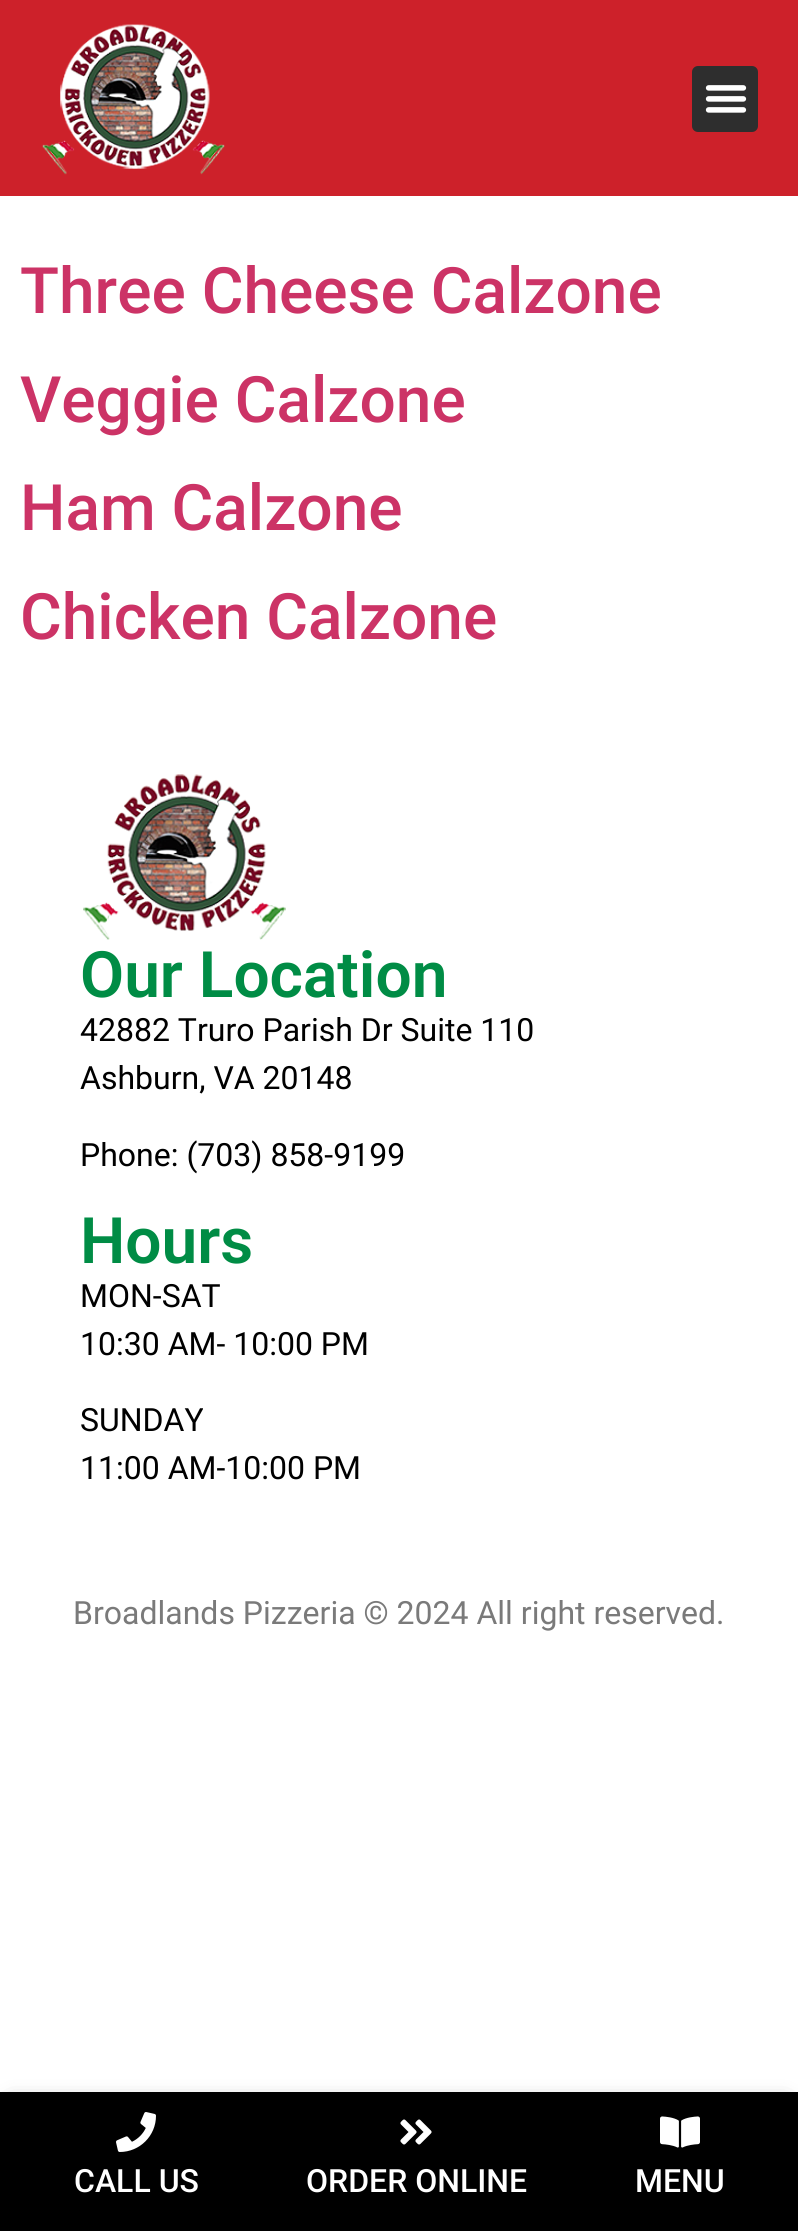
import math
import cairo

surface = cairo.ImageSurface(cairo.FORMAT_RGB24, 798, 2231)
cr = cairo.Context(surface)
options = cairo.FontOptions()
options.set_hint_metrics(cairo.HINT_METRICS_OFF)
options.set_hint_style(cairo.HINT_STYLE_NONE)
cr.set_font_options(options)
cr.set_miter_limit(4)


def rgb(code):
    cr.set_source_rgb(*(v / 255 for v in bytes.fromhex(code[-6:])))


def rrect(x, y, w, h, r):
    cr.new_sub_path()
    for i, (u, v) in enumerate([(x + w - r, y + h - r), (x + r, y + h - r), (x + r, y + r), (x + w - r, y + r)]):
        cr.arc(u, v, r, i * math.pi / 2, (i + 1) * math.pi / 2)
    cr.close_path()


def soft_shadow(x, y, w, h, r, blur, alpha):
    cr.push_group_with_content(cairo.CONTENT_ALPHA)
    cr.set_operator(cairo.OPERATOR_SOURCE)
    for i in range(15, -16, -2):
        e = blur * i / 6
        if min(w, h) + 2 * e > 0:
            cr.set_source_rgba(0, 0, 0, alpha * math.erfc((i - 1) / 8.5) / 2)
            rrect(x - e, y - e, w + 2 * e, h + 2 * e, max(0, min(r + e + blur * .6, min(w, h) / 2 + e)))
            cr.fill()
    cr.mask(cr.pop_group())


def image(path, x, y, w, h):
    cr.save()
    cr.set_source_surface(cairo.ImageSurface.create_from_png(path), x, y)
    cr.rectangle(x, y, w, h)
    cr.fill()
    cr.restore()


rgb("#ffffff")
cr.paint()
image("img/1.png", 83, 774, 203, 166)
rgb("#cd212a")
cr.rectangle(0, 0, 798, 196)
cr.fill()
image("img/2.png", 42, 24, 183, 151)
rgb("#2e2e2e")
rrect(692, 66, 66, 66, 6)
cr.fill()
image("img/3.png", 705, 85, 42, 28)
rgb("#000000")
soft_shadow(12, 2104, 774, 116, 0, 10, 0.5)
rgb("#000000")
cr.rectangle(0, 2092, 798, 139)
cr.fill()
image("img/4.png", 116, 2112, 40, 40)
image("img/5.png", 400, 2119, 32, 26)
image("img/6.png", 660, 2116, 40, 32)
cr.select_font_face("Roboto Medium")
cr.set_font_size(64)
rgb("#cc3366")
for x, y, s in [
    (20, 313, "Three Cheese Calzone"),
    (20, 422, "Veggie Calzone"),
    (20, 530, "Ham Calzone"),
    (20, 639, "Chicken Calzone"),
]:
    cr.move_to(x, y)
    cr.show_text(s)
cr.select_font_face("Roboto SemiBold")
rgb("#008c45")
cr.move_to(80, 997)
cr.show_text("Our Location")
cr.select_font_face("Roboto")
cr.set_font_size(32)
rgb("#000000")
for x, y, s in [
    (80, 1041, "42882 Truro Parish Dr Suite 110"),
    (80, 1089, "Ashburn, VA 20148"),
    (80, 1166, "Phone: (703) 858-9199"),
]:
    cr.move_to(x, y)
    cr.show_text(s)
cr.select_font_face("Roboto SemiBold")
cr.set_font_size(64)
rgb("#008c45")
cr.move_to(80, 1263)
cr.show_text("Hours")
cr.select_font_face("Roboto")
cr.set_font_size(32)
rgb("#000000")
for x, y, s in [
    (80, 1307, "MON-SAT"),
    (80, 1355, "10:30 AM- 10:00 PM"),
    (80, 1431, "SUNDAY"),
    (80, 1479, "11:00 AM-10:00 PM"),
]:
    cr.move_to(x, y)
    cr.show_text(s)
rgb("#7a7a7a")
cr.move_to(73, 1624)
cr.show_text("Broadlands Pizzeria © 2024 All right reserved.")
cr.select_font_face("Roboto Medium")
rgb("#ffffff")
for x, y, s in [
    (74, 2192, "CALL US"),
    (306, 2192, "ORDER ONLINE"),
    (635, 2192, "MENU"),
]:
    cr.move_to(x, y)
    cr.show_text(s)
surface.write_to_png("page.png")
